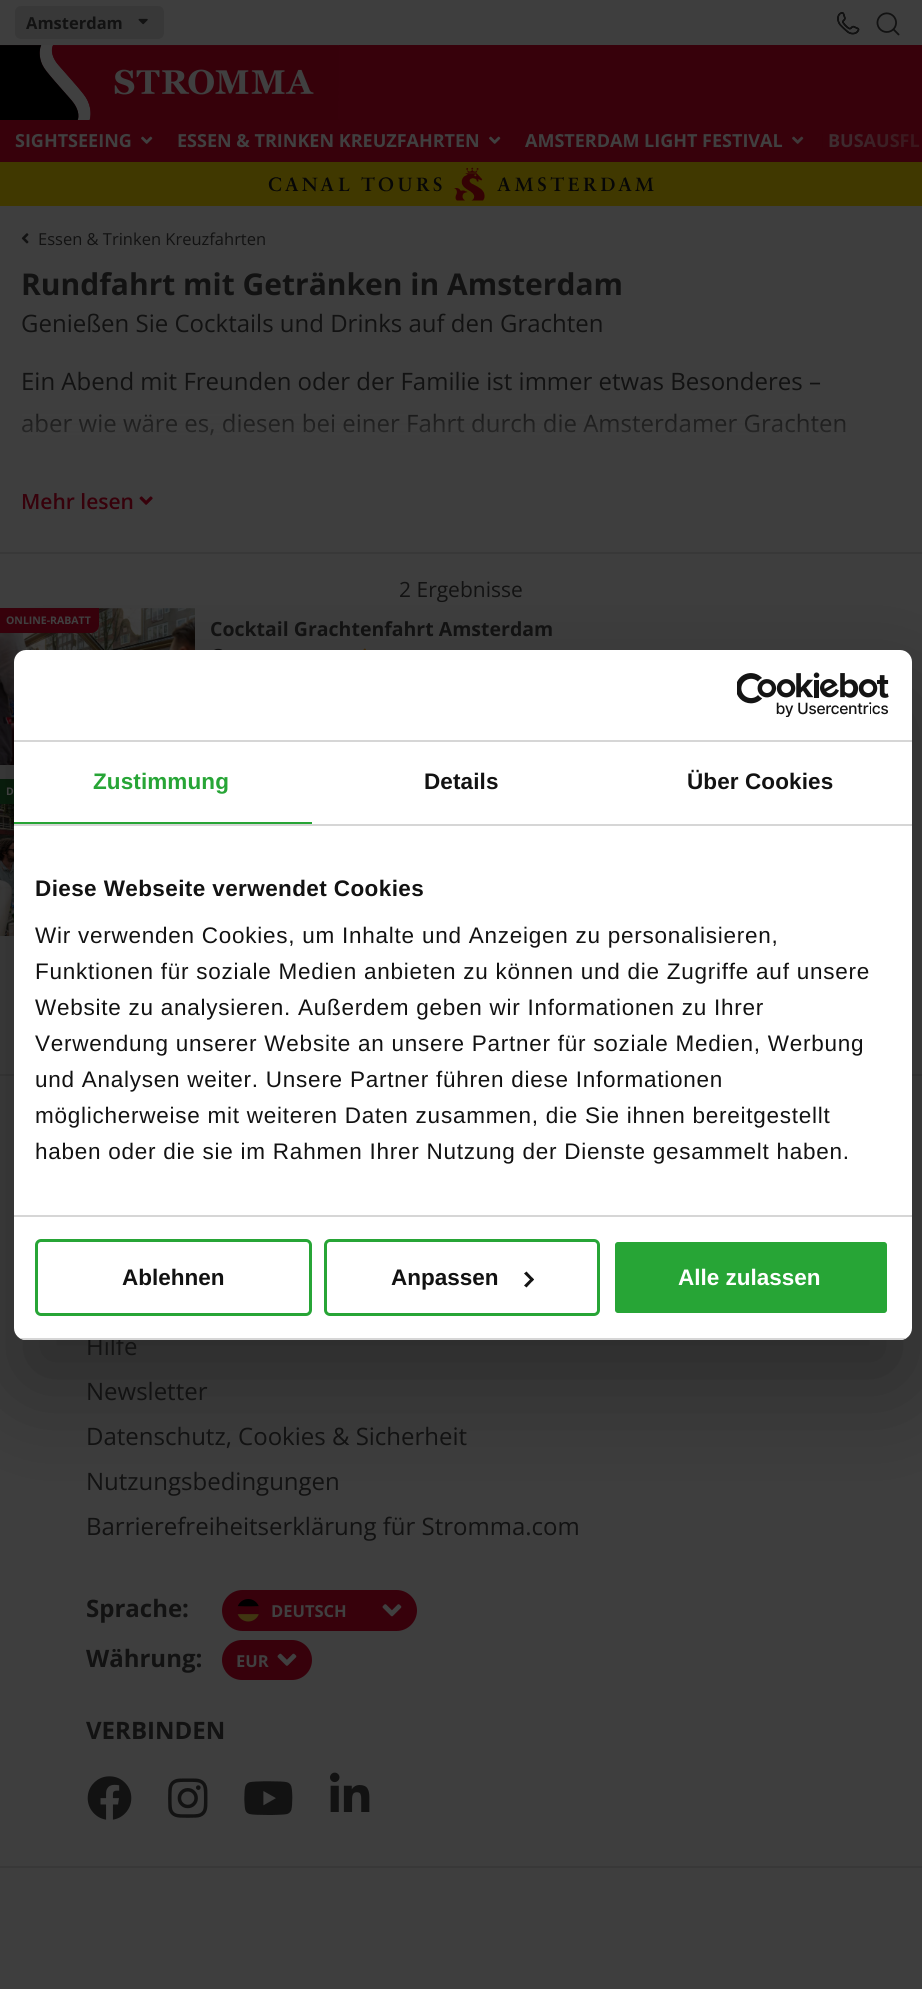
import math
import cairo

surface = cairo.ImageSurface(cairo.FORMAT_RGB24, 922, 1989)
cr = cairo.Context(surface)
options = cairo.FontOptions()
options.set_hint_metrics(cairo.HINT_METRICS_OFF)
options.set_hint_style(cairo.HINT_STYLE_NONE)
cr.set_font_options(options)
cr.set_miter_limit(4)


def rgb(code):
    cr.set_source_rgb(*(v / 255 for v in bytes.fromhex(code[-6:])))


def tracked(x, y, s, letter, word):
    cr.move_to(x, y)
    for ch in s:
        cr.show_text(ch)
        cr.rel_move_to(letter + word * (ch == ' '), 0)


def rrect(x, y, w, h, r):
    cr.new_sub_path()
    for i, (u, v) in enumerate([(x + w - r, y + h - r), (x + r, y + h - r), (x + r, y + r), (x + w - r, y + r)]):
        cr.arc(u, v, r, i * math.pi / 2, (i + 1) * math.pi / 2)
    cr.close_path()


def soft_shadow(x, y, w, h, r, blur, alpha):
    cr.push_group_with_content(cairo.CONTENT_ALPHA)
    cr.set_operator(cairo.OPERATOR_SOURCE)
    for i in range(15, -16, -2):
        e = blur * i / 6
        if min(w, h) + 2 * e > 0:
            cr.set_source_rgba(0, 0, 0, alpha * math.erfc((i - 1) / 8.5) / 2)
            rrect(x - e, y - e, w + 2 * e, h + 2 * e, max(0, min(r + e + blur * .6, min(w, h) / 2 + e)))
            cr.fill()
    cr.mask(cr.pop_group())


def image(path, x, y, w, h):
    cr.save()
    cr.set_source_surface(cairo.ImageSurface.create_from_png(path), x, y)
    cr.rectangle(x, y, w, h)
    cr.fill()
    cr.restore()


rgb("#3e3e3e")
cr.paint()
rgb("#383838")
rrect(15, 6, 149, 33, 6)
cr.fill()
image("img/1.png", 138, 18, 10, 7)
image("img/2.png", 837, 12, 23, 23)
image("img/3.png", 876, 12, 24, 24)
rgb("#37010b")
cr.rectangle(0, 45, 922, 117)
cr.fill()
image("img/4.png", 0, 45, 339, 75)
image("img/5.png", 141, 136, 12, 8)
image("img/5.png", 489, 136, 12, 8)
image("img/5.png", 792, 136, 12, 8)
rgb("#403800")
cr.rectangle(0, 162, 922, 44)
cr.fill()
image("img/6.png", 268, 167, 386, 34)
rgb("#383838")
cr.rectangle(0, 552, 922, 2)
cr.fill()
image("img/7.png", 21, 233, 8, 11)
image("img/8.png", 139, 496, 14, 9)
image("img/9.png", 0, 608, 195, 157)
rgb("#37010b")
cr.new_path()
cr.move_to(-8, 608)
cr.line_to(99, 608)
cr.line_to(99, 625)
cr.curve_to(99, 629.5, 95.5, 633, 91, 633)
cr.line_to(-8, 633)
cr.close_path()
cr.fill()
image("img/10.png", 214, 648, 9, 2)
image("img/11.png", 363, 648, 3, 2)
rgb("#091f0d")
cr.rectangle(0, 779, 14, 25)
cr.fill()
image("img/12.png", 0, 804, 14, 132)
rgb("#383838")
cr.rectangle(0, 1074, 922, 2)
cr.fill()
rgb("#000000")
soft_shadow(14, 698, 898, 690, 12, 51, 0.3)
rgb("#37010b")
rrect(222, 1590, 195, 41, 20.5)
cr.fill()
image("img/14.png", 237, 1599, 22, 23)
image("img/15.png", 382, 1604, 20, 13)
rrect(222, 1640, 90, 40, 20)
cr.fill()
image("img/16.png", 277, 1653, 20, 13)
image("img/17.png", 87, 1776, 45, 44)
image("img/18.png", 168, 1778, 40, 40)
image("img/19.png", 244, 1781, 49, 34)
image("img/20.png", 330, 1772, 40, 40)
rgb("#383838")
cr.rectangle(0, 1866, 922, 2)
cr.fill()
cr.select_font_face("Open Sans", cairo.FONT_SLANT_NORMAL, cairo.FONT_WEIGHT_BOLD)
cr.set_font_size(16.5)
rgb("#121212")
cr.move_to(26, 29)
cr.show_text("Amsterdam")
cr.set_font_size(18)
rgb("#404040")
for x, y, s in [
    (15, 147, "SIGHTSEEING"),
    (177, 147, "ESSEN & TRINKEN KREUZFAHRTEN"),
    (525, 147, "AMSTERDAM LIGHT FESTIVAL"),
    (828, 147, "BUSAUSFL"),
]:
    cr.move_to(x, y)
    cr.show_text(s)
gradient = cairo.LinearGradient(774, 141, 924, 141)
gradient.add_color_stop_rgba(0, 0.216, 0.004, 0.043, 0)
gradient.add_color_stop_rgba(1, 0.216, 0.004, 0.043, 0.7)
cr.set_source(gradient)
cr.rectangle(792, 134, 127, 14)
cr.fill()
cr.select_font_face("Open Sans")
cr.set_font_size(16.5)
rgb("#121212")
cr.move_to(38, 245)
cr.show_text("Essen & Trinken Kreuzfahrten")
cr.select_font_face("Open Sans", cairo.FONT_SLANT_NORMAL, cairo.FONT_WEIGHT_BOLD)
cr.set_font_size(30)
cr.move_to(21, 295)
cr.show_text("Rundfahrt mit Getränken in Amsterdam")
cr.select_font_face("Open Sans")
cr.set_font_size(24)
for x, y, s in [
    (21, 332, "Genießen Sie Cocktails und Drinks auf den Grachten"),
    (21, 390, "Ein Abend mit Freunden oder der Familie ist immer etwas Besonderes –"),
    (21, 432, "aber wie wäre es, diesen bei einer Fahrt durch die Amsterdamer Grachten"),
]:
    cr.move_to(x, y)
    cr.show_text(s)
gradient = cairo.LinearGradient(446, 267, 446, 552)
gradient.add_color_stop_rgba(0, 0.243, 0.243, 0.243, 0)
gradient.add_color_stop_rgba(0.47, 0.251, 0.251, 0.251, 0)
gradient.add_color_stop_rgba(0.73, 0.251, 0.251, 0.251, 1)
cr.set_source(gradient)
cr.rectangle(22, 414, 824, 21)
cr.fill()
cr.select_font_face("Open Sans SemiBold")
cr.set_font_size(21)
rgb("#37010b")
cr.move_to(21, 509)
cr.show_text("Mehr lesen")
cr.select_font_face("Open Sans")
rgb("#121212")
cr.move_to(399, 597)
cr.show_text("2 Ergebnisse")
cr.select_font_face("Open Sans", cairo.FONT_SLANT_NORMAL, cairo.FONT_WEIGHT_BOLD)
cr.set_font_size(10.5)
rgb("#404040")
cr.move_to(6, 624)
cr.show_text("ONLINE-RABATT")
cr.set_font_size(19.5)
rgb("#121212")
cr.move_to(210, 636)
cr.show_text("Cocktail Grachtenfahrt Amsterdam")
cr.set_font_size(10.5)
rgb("#404040")
cr.move_to(6, 795)
cr.show_text("D")
cr.select_font_face("Open Sans")
cr.set_font_size(24)
rgb("#121212")
cr.move_to(86, 1355)
cr.show_text("Hilfe")
rgb("#ffffff")
rrect(14, 650, 898, 690, 12)
cr.fill()
rrect(325.5, 1240.5, 273, 74, 4.5)
rgb("#27a536")
cr.set_line_width(3)
cr.stroke()
rgb("#141414")
cr.new_path()
cr.move_to(526.5, 1271.5)
cr.line_to(534, 1279.5)
cr.line_to(532, 1281.5)
cr.line_to(524, 1273.5)
cr.close_path()
cr.fill()
cr.new_path()
cr.move_to(532, 1277.5)
cr.line_to(534, 1279.5)
cr.line_to(526.5, 1287.5)
cr.line_to(524, 1285.5)
cr.close_path()
cr.fill()
rgb("#27a536")
rrect(613.5, 1240.5, 275, 74, 4.5)
cr.fill_preserve()
rgb("#ffffff")
cr.stroke()
cr.select_font_face("Liberation Sans", cairo.FONT_SLANT_NORMAL, cairo.FONT_WEIGHT_BOLD)
cr.set_font_size(22.5)
cr.move_to(678, 1285)
cr.show_text("Alle zulassen")
rgb("#121212")
cr.move_to(391, 1285)
cr.show_text("Anpassen")
rrect(36.5, 1240.5, 274, 74, 4.5)
rgb("#27a536")
cr.stroke()
rgb("#121212")
cr.move_to(122, 1285)
cr.show_text("Ablehnen")
cr.save()
rrect(14, 650, 898, 690, 12)
cr.clip()
rgb("#d6d6d6")
cr.rectangle(14, 1338, 898, 2)
cr.fill()
cr.restore()
cr.select_font_face("Liberation Sans")
for x, y, s in [
    (35, 1159, "haben oder die sie im Rahmen Ihrer Nutzung der Dienste gesammelt haben."),
    (35, 1123, "möglicherweise mit weiteren Daten zusammen, die Sie ihnen bereitgestellt"),
    (35, 1087, "und Analysen weiter. Unsere Partner führen diese Informationen"),
    (35, 1051, "Verwendung unserer Website an unsere Partner für soziale Medien, Werbung"),
    (35, 1015, "Website zu analysieren. Außerdem geben wir Informationen zu Ihrer"),
    (35, 979, "Funktionen für soziale Medien anbieten zu können und die Zugriffe auf unsere"),
    (35, 943, "Wir verwenden Cookies, um Inhalte und Anzeigen zu personalisieren,"),
]:
    tracked(x, y, s, 0.75, 0)
cr.select_font_face("Liberation Sans", cairo.FONT_SLANT_NORMAL, cairo.FONT_WEIGHT_BOLD)
tracked(35, 896, "Diese Webseite verwendet Cookies", 0.4, 0)
rgb("#d6d6d6")
cr.rectangle(14, 1215, 898, 2)
cr.fill()
rgb("#121212")
tracked(687, 789, "Über Cookies", 0.1, 0)
tracked(424, 789, "Details", 0.1, 0)
rgb("#27a536")
tracked(93, 789, "Zustimmung", 0.1, 0)
cr.rectangle(14, 822, 298, 2)
cr.fill()
rgb("#d6d6d6")
cr.rectangle(14, 824, 898, 2)
cr.fill()
image("img/13.png", 737, 672, 152, 45)
cr.rectangle(14, 740, 898, 2)
cr.fill()
cr.select_font_face("Open Sans")
cr.set_font_size(24)
rgb("#121212")
for x, y, s in [
    (86, 1400, "Newsletter"),
    (86, 1445, "Datenschutz, Cookies & Sicherheit"),
    (86, 1490, "Nutzungsbedingungen"),
    (86, 1535, "Barrierefreiheitserklärung für Stromma.com"),
]:
    cr.move_to(x, y)
    cr.show_text(s)
cr.select_font_face("Open Sans", cairo.FONT_SLANT_NORMAL, cairo.FONT_WEIGHT_BOLD)
cr.move_to(86, 1617)
cr.show_text("Sprache:")
cr.set_font_size(16.5)
rgb("#404040")
cr.move_to(271, 1617)
cr.show_text("DEUTSCH")
cr.set_font_size(24)
rgb("#121212")
cr.move_to(86, 1667)
cr.show_text("Währung:")
cr.set_font_size(16.5)
rgb("#404040")
cr.move_to(236, 1667)
cr.show_text("EUR")
cr.set_font_size(24)
rgb("#121212")
cr.move_to(86, 1739)
cr.show_text("VERBINDEN")
surface.write_to_png("page.png")
